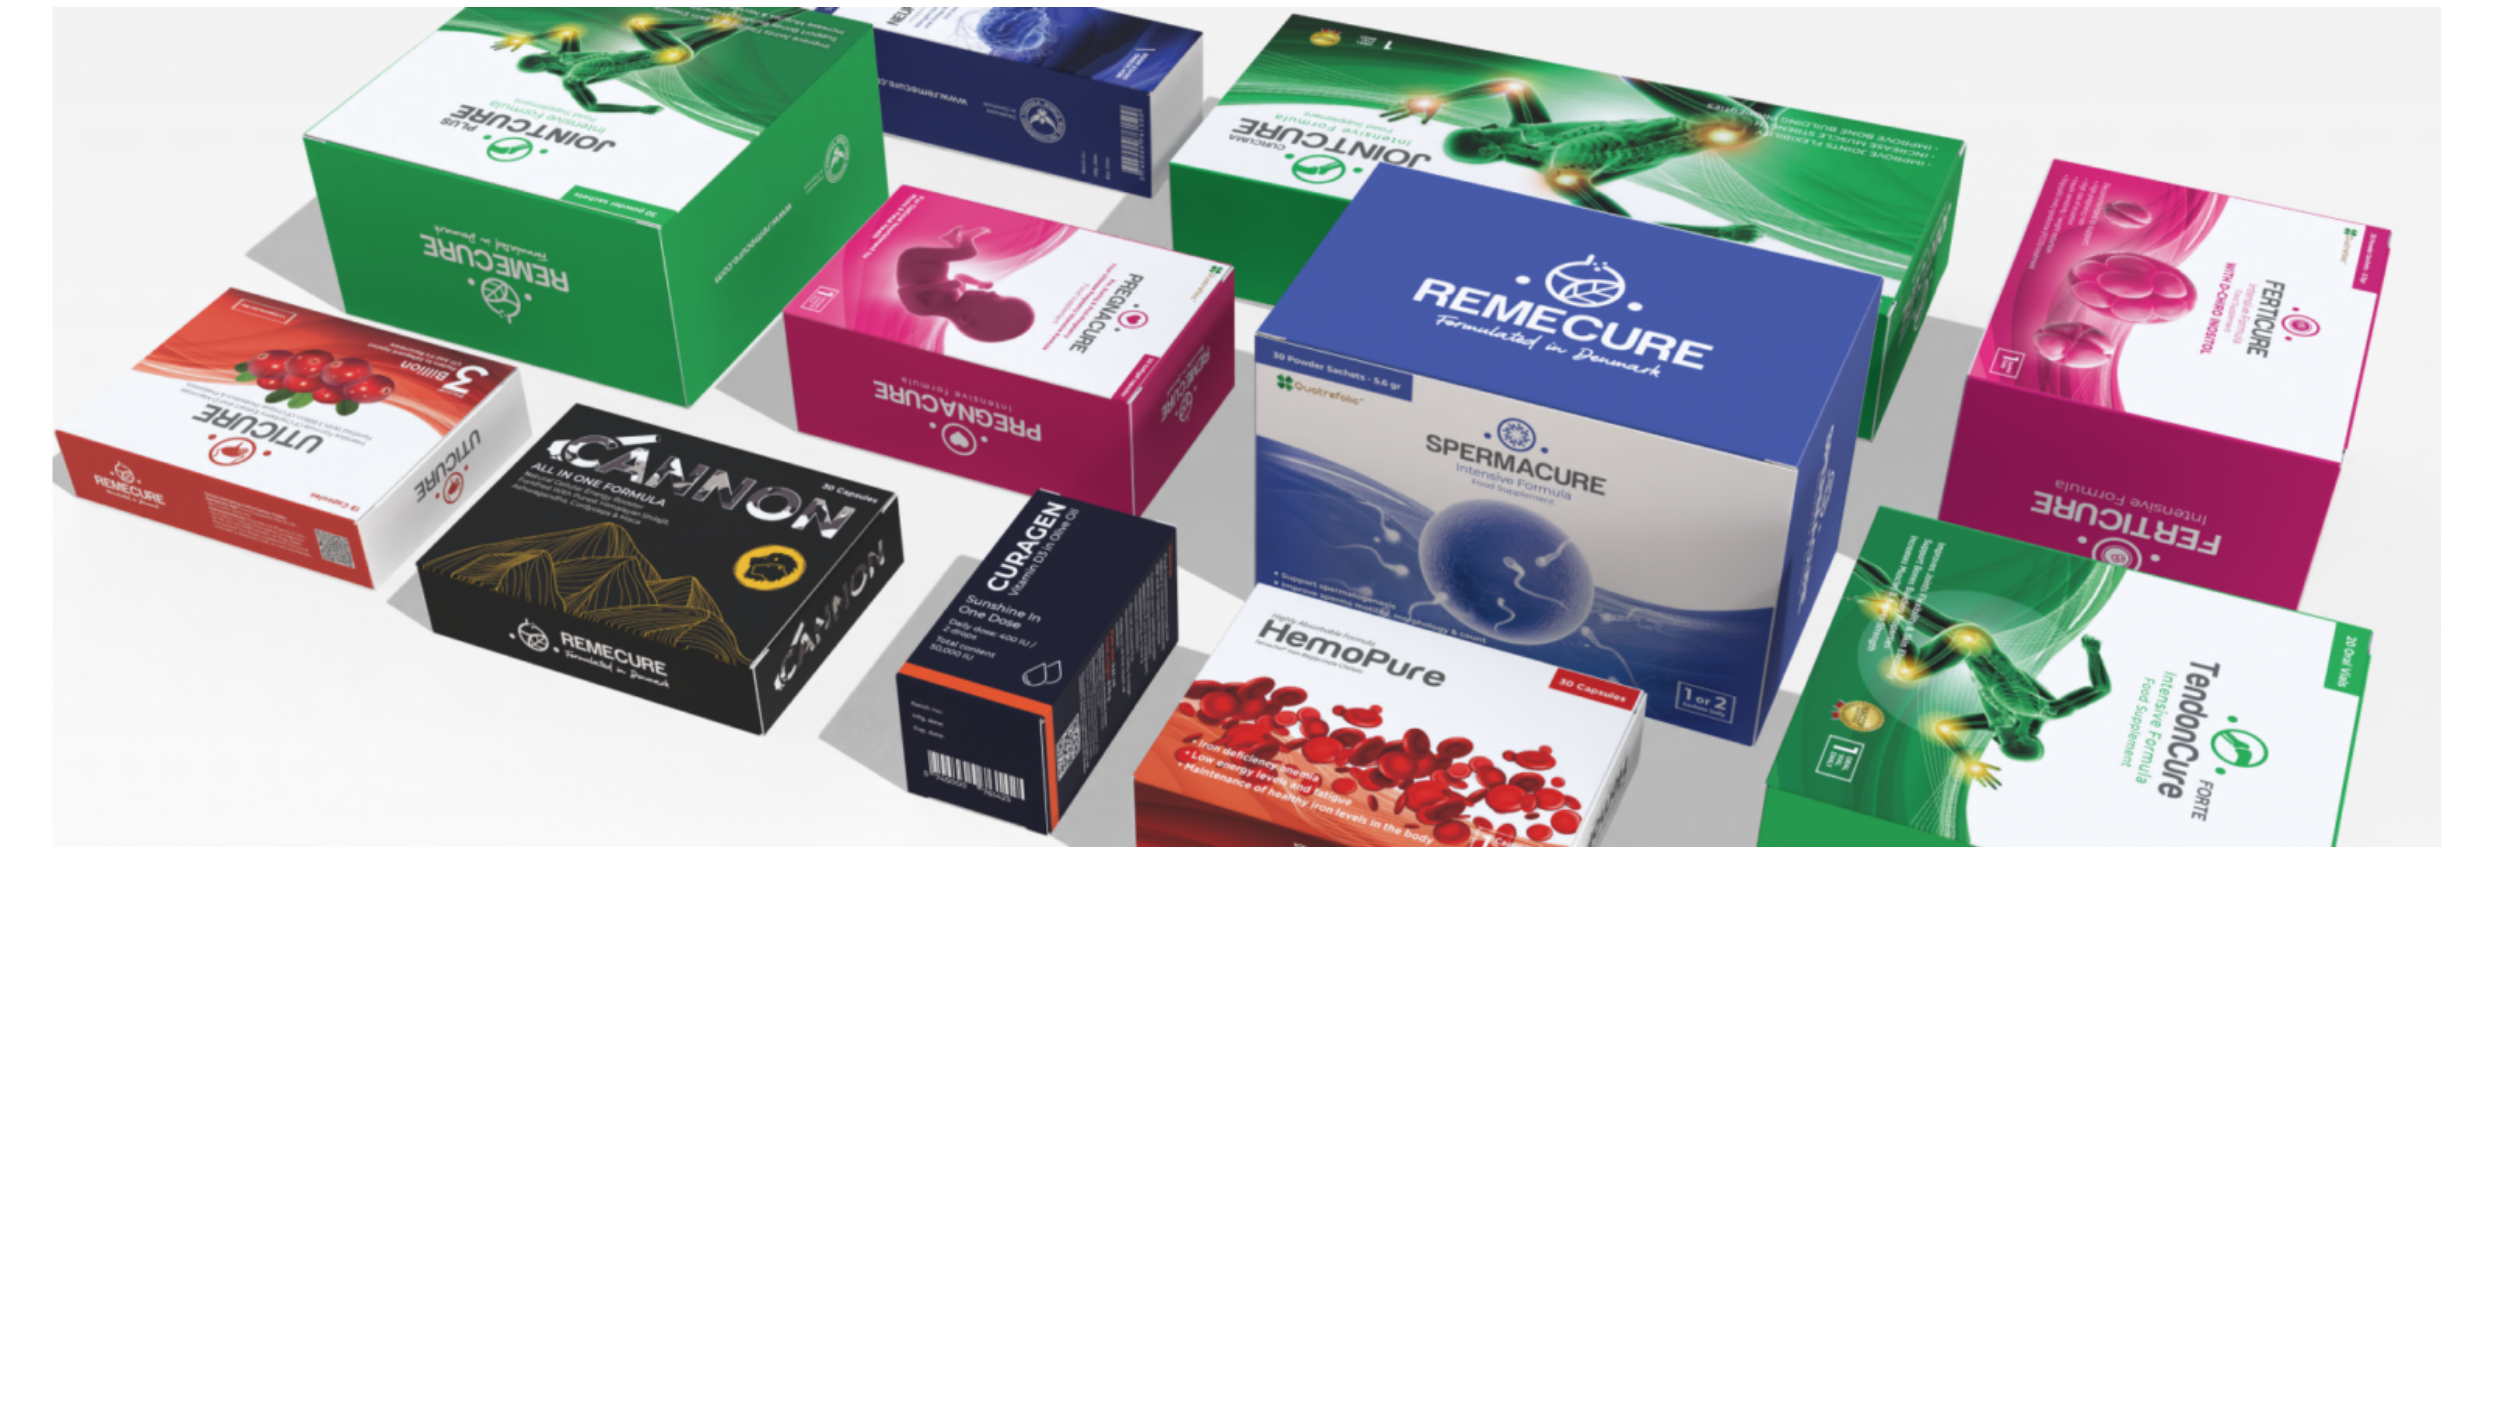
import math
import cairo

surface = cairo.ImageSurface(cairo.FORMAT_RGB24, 2493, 1421)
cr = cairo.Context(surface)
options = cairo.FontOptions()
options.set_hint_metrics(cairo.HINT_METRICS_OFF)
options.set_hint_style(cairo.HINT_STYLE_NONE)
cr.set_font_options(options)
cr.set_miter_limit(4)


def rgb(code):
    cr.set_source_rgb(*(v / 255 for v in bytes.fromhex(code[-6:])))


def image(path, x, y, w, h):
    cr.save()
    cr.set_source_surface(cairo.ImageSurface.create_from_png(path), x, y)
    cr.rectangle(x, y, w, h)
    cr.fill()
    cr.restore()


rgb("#ffffff")
cr.paint()
image("img/1.png", 52, 7, 2390, 840)
surface.write_to_png("page.png")
